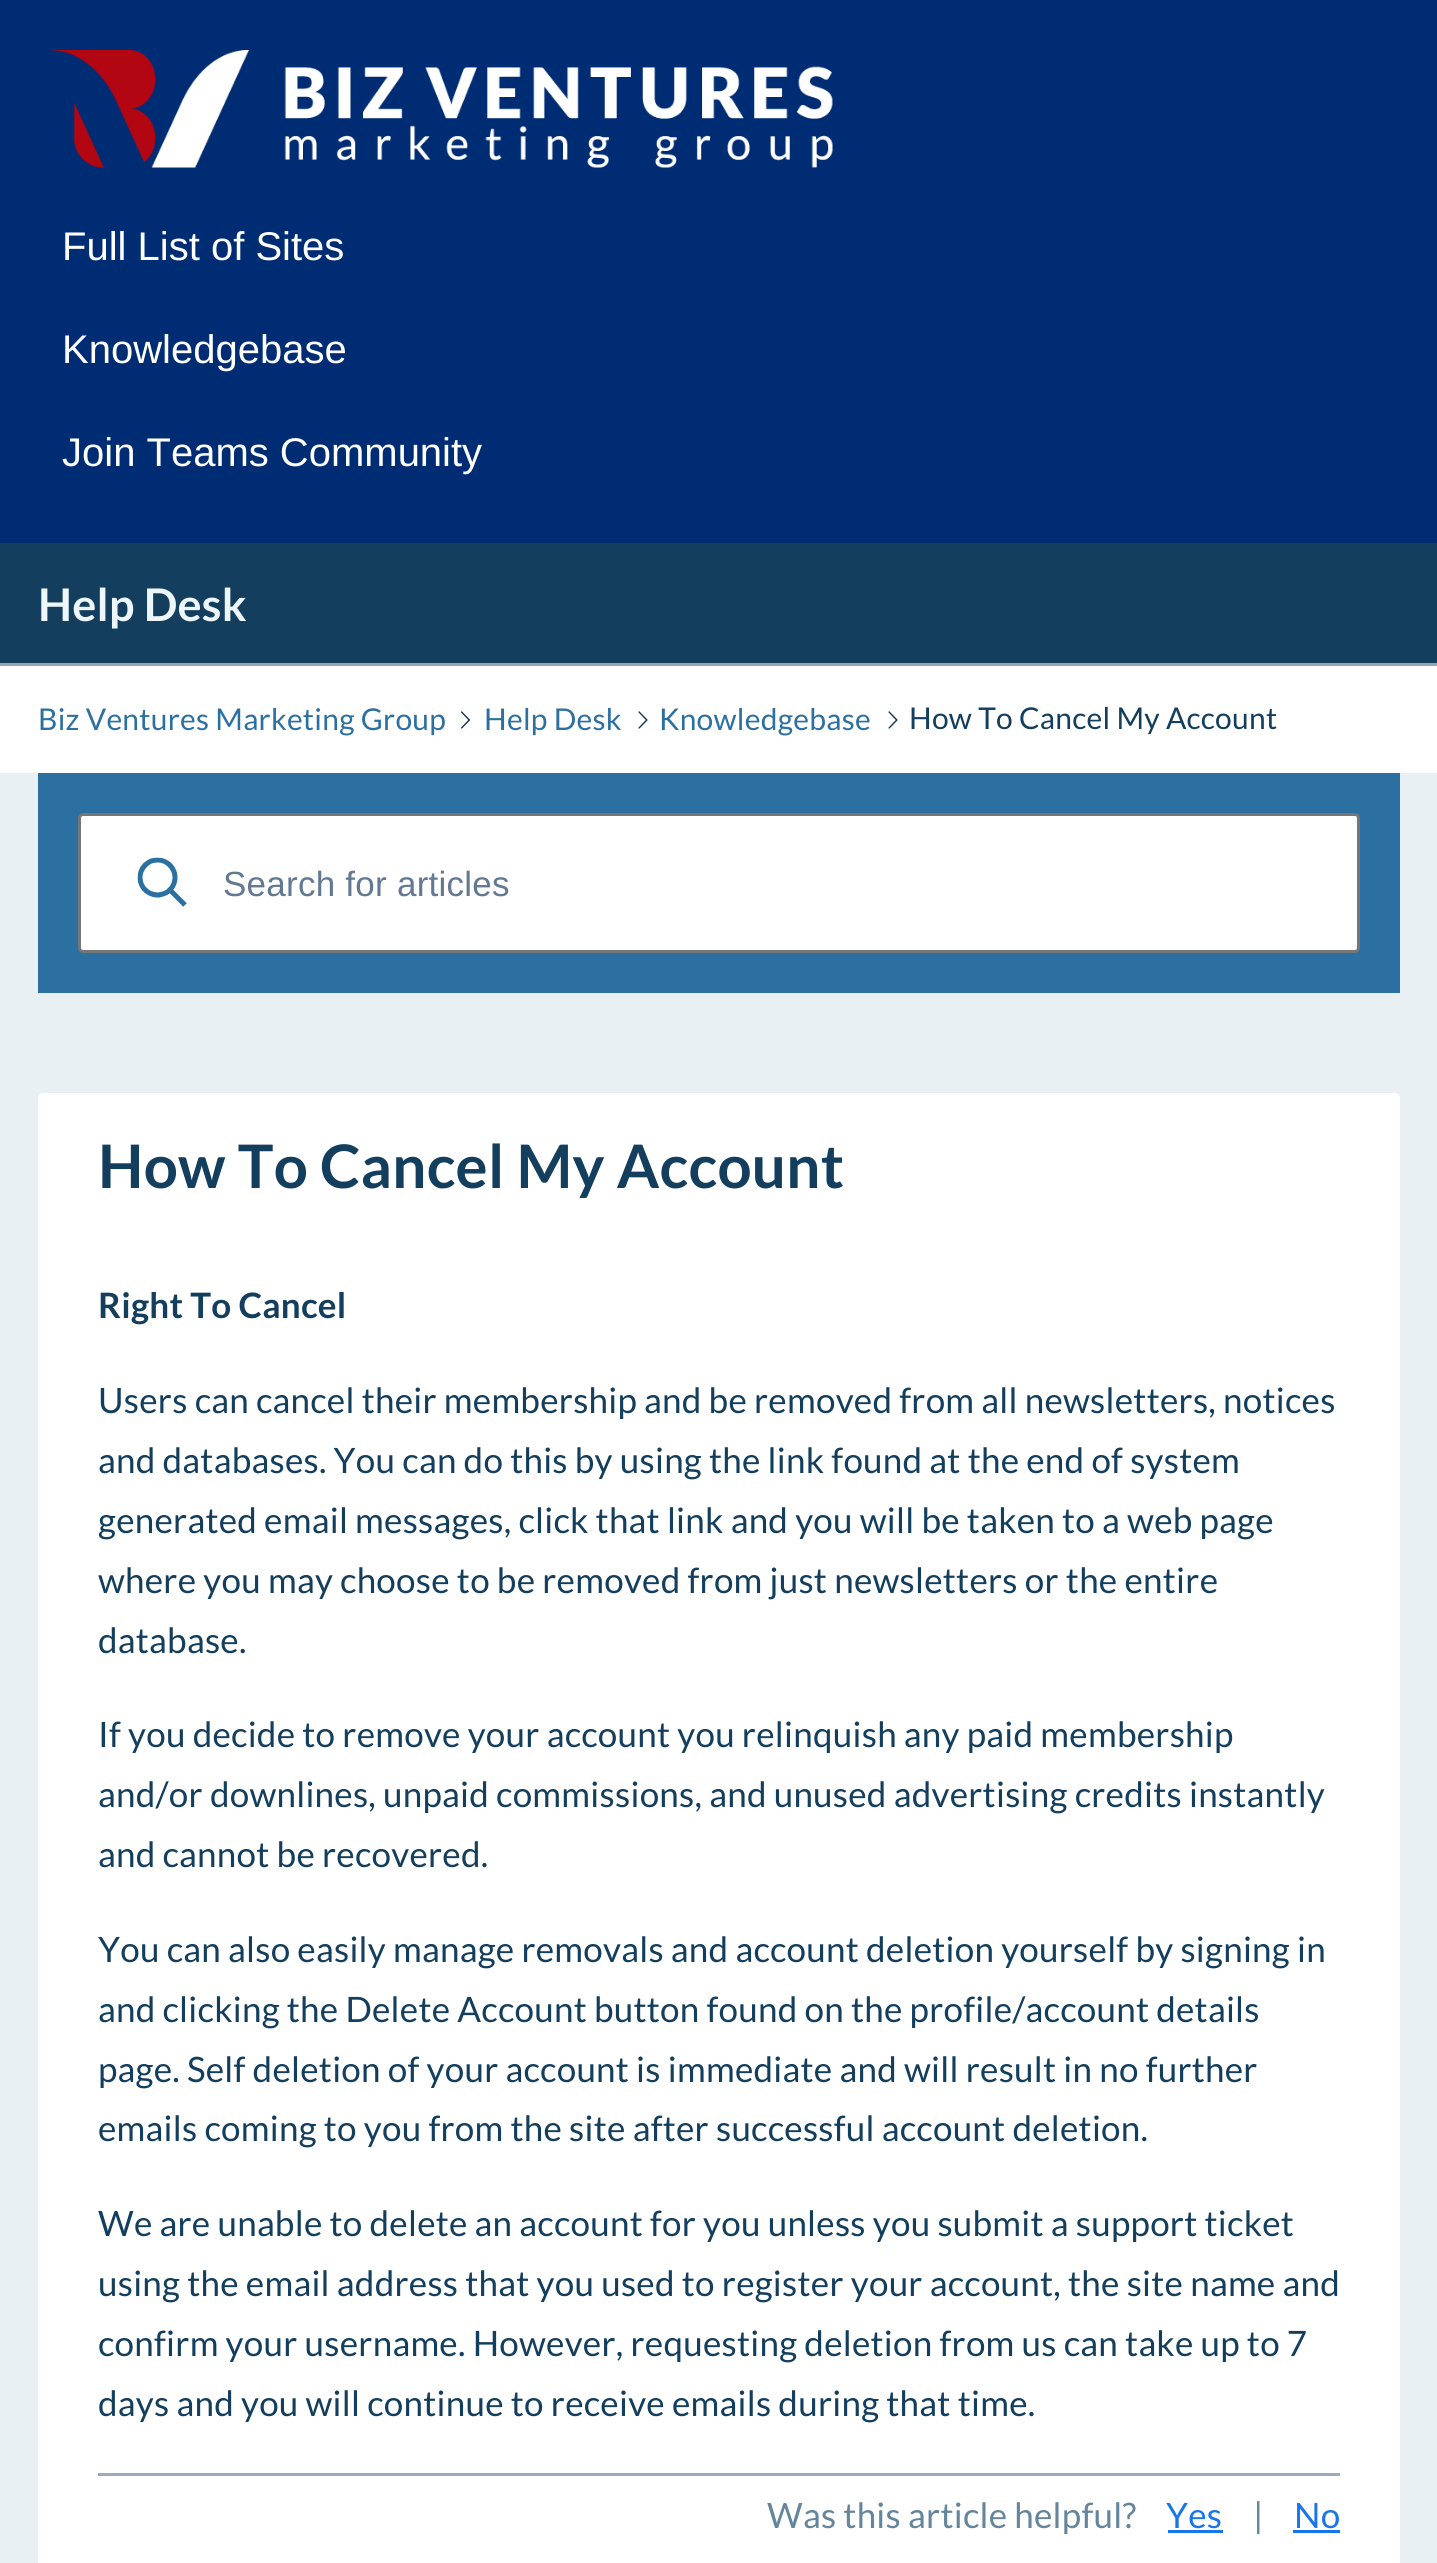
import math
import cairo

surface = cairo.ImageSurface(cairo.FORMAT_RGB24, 1437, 2563)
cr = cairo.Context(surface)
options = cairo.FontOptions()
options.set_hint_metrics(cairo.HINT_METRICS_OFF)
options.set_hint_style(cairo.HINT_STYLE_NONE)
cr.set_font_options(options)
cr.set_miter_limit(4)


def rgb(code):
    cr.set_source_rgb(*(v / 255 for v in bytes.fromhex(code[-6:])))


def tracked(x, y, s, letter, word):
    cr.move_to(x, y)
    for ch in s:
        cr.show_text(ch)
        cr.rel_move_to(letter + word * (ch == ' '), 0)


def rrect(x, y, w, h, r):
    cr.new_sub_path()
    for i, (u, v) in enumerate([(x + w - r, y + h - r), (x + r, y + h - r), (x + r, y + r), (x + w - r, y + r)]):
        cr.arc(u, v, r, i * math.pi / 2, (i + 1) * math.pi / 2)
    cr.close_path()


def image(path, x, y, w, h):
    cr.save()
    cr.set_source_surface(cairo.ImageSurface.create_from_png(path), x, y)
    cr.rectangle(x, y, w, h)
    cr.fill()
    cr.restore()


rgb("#002c74")
cr.paint()
image("img/1.png", 50, 50, 783, 118)
for x, y, w, h, color in [
    (0, 666, 1437, 107, "#ffffff"),
    (0, 543, 1437, 120, "#133e5e"),
    (0, 663, 1437, 3, "#92a8b6"),
]:
    rgb(color)
    cr.rectangle(x, y, w, h)
    cr.fill()
image("img/2.png", 461, 711, 9, 18)
image("img/3.png", 638, 711, 10, 18)
image("img/3.png", 888, 711, 10, 18)
rgb("#e9f0f3")
cr.rectangle(0, 773, 1437, 1790)
cr.fill()
rgb("#2c70a2")
cr.rectangle(38, 773, 1362, 220)
cr.fill()
rgb("#ffffff")
rrect(79.5, 814.5, 1279, 137, 3.5)
cr.fill_preserve()
rgb("#767676")
cr.set_line_width(3)
cr.stroke()
image("img/4.png", 137, 857, 50, 50)
rgb("#ffffff")
rrect(38, 1093, 1362, 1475, 5)
cr.fill()
for x, y, w, h, color in [
    (98, 2473, 1242, 3, "#9caabb"),
    (1168, 2530, 55, 3, "#1776ea"),
    (1293, 2530, 47, 3, "#1776ea"),
]:
    rgb(color)
    cr.rectangle(x, y, w, h)
    cr.fill()
cr.select_font_face("Liberation Sans")
cr.set_font_size(40)
rgb("#ffffff")
for x, y, s in [
    (62, 260, "Full List of Sites"),
    (62, 363, "Knowledgebase"),
    (62, 466, "Join Teams Community"),
]:
    cr.move_to(x, y)
    cr.show_text(s)
cr.select_font_face("Lato", cairo.FONT_SLANT_NORMAL, cairo.FONT_WEIGHT_BOLD)
cr.set_font_size(45)
rgb("#edf6fb")
tracked(38, 621, "Help Desk", 0.25, 0)
cr.select_font_face("Lato")
cr.set_font_size(30)
rgb("#2c70a2")
for x, y, s in [
    (38, 730, "Biz Ventures Marketing Group"),
    (484, 730, "Help Desk"),
    (659, 730, "Knowledgebase"),
]:
    tracked(x, y, s, 0.25, 0)
rgb("#133e5e")
tracked(909, 729, "How To Cancel My Account", 0.25, 0)
cr.select_font_face("Liberation Sans")
cr.set_font_size(35)
rgb("#637892")
tracked(223, 896, "Search for articles", 0.25, 0)
cr.select_font_face("Lato", cairo.FONT_SLANT_NORMAL, cairo.FONT_WEIGHT_BOLD)
cr.set_font_size(60)
rgb("#133e5e")
tracked(98, 1188, "How To Cancel My Account", 0.3, 0)
cr.set_font_size(35)
tracked(98, 1318, "Right To Cancel", 0.25, 0)
cr.select_font_face("Lato")
for x, y, s in [
    (98, 1413, "Users can cancel their membership and be removed from all newsletters, notices"),
    (98, 1473, "and databases. You can do this by using the link found at the end of system"),
    (98, 1533, "generated email messages, click that link and you will be taken to a web page"),
    (98, 1593, "where you may choose to be removed from just newsletters or the entire"),
    (98, 1653, "database."),
    (98, 1747, "If you decide to remove your account you relinquish any paid membership"),
    (98, 1807, "and/or downlines, unpaid commissions, and unused advertising credits instantly"),
    (98, 1867, "and cannot be recovered."),
    (98, 1962, "You can also easily manage removals and account deletion yourself by signing in"),
    (98, 2022, "and clicking the Delete Account button found on the profile/account details"),
    (98, 2082, "page. Self deletion of your account is immediate and will result in no further"),
    (98, 2141, "emails coming to you from the site after successful account deletion."),
    (98, 2236, "We are unable to delete an account for you unless you submit a support ticket"),
    (98, 2296, "using the email address that you used to register your account, the site name and"),
    (98, 2356, "confirm your username. However, requesting deletion from us can take up to 7"),
    (98, 2416, "days and you will continue to receive emails during that time."),
]:
    tracked(x, y, s, 0.25, 0)
rgb("#64859c")
tracked(767, 2528, "Was this article helpful?", 0.25, 0)
rgb("#1776ea")
tracked(1166, 2528, "Yes", 0.25, 0)
rgb("#64859c")
tracked(1253, 2528, "|", 0.25, 0)
rgb("#1776ea")
tracked(1294, 2528, "No", 0.25, 0)
surface.write_to_png("page.png")
